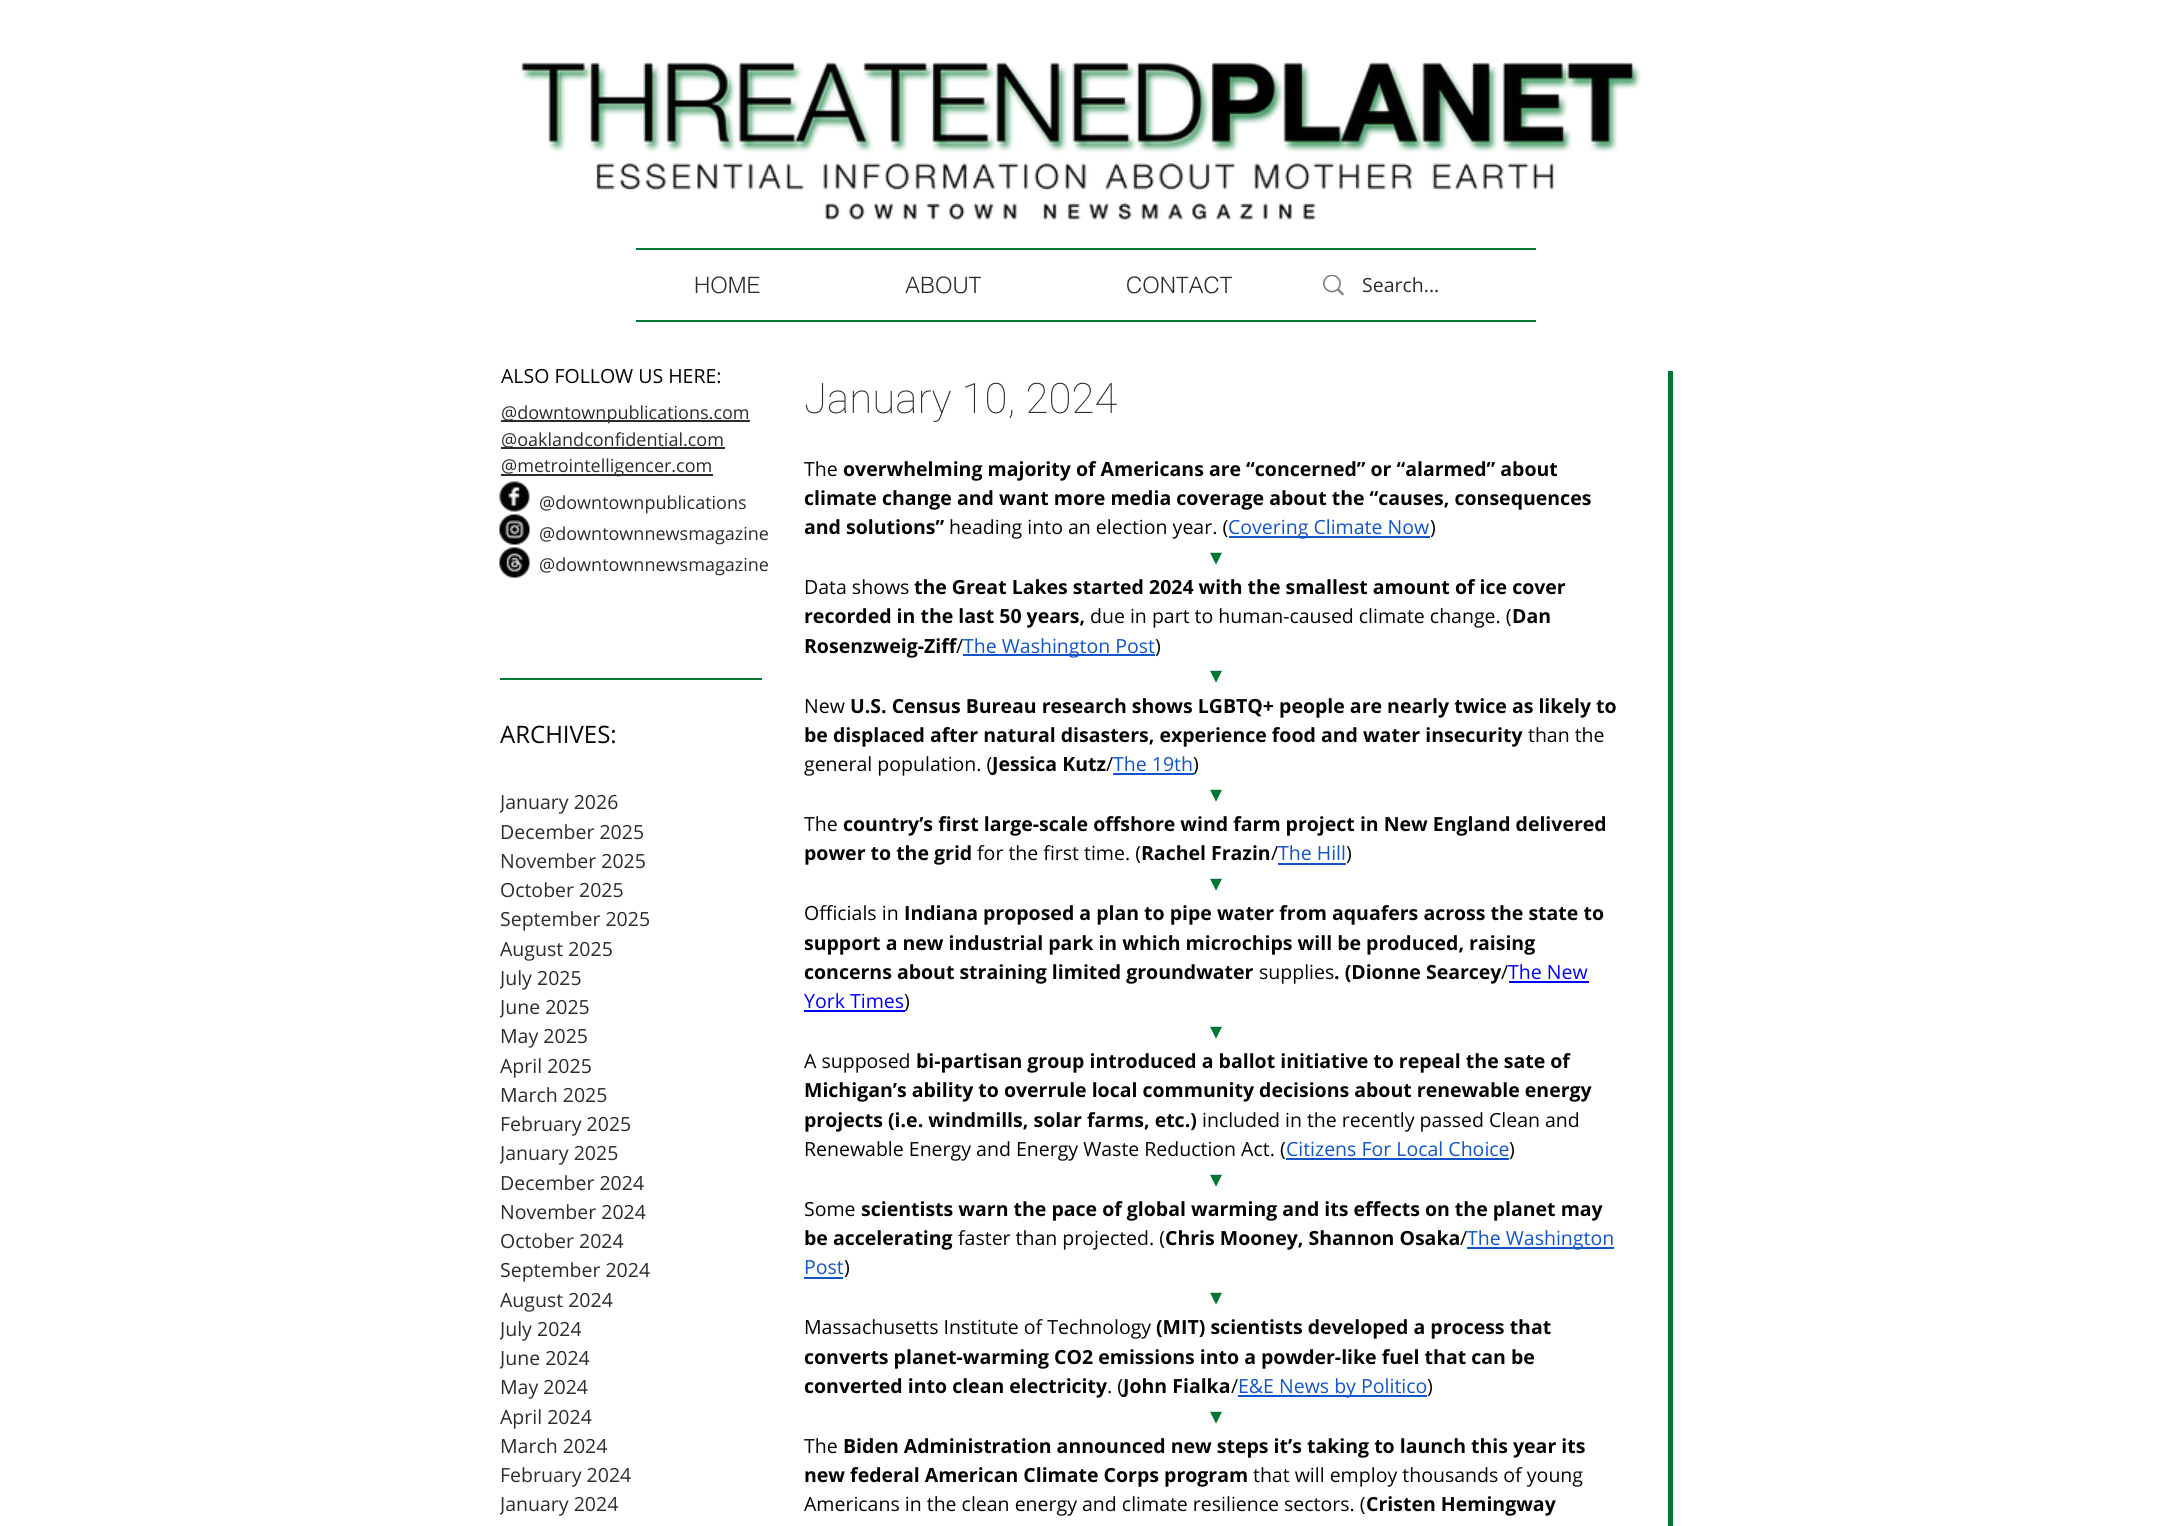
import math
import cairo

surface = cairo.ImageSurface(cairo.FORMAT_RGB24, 2172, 1526)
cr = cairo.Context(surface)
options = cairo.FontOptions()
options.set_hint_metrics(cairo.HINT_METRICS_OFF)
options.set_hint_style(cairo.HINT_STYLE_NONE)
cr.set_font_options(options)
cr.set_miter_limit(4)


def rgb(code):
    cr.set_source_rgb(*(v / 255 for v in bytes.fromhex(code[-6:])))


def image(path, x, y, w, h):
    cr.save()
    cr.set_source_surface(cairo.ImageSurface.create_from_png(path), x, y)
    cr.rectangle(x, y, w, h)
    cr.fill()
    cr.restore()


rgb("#ffffff")
cr.paint()
image("img/1.png", 521, 62, 1120, 159)
rgb("#007833")
cr.rectangle(636, 248, 900, 2)
cr.fill()
image("img/2.png", 1323, 275, 21, 21)
for x, y, w, h, color in [
    (636, 320, 900, 2, "#007833"),
    (501, 420, 249, 2, "#2c2c2b"),
    (501, 447, 224, 2, "#2c2c2b"),
    (501, 474, 212, 2, "#2c2c2b"),
]:
    rgb(color)
    cr.rectangle(x, y, w, h)
    cr.fill()
image("img/3.png", 499, 481, 31, 31)
image("img/4.png", 499, 514, 31, 31)
image("img/5.png", 499, 547, 31, 31)
for x, y, w, h, color in [
    (1668, 371, 5, 1155, "#007833"),
    (500, 678, 262, 2, "#007833"),
    (1229, 536, 201, 2, "#1155cc"),
    (963, 654, 192, 2, "#1155cc"),
    (1113, 773, 81, 2, "#1155cc"),
    (1278, 863, 68, 2, "#1155cc"),
    (1509, 981, 80, 2, "#0000ff"),
    (804, 1010, 101, 2, "#0000ff"),
    (1286, 1158, 223, 2, "#1155cc"),
    (1467, 1247, 147, 2, "#1155cc"),
    (804, 1277, 39, 2, "#1155cc"),
    (1238, 1395, 189, 2, "#1155cc"),
]:
    rgb(color)
    cr.rectangle(x, y, w, h)
    cr.fill()
cr.select_font_face("helvetica Light")
cr.set_font_size(22.5)
rgb("#2c2c2b")
for x, y, s in [
    (694, 293, "HOME"),
    (905, 293, "ABOUT"),
    (1126, 293, "CONTACT"),
]:
    cr.move_to(x, y)
    cr.show_text(s)
cr.select_font_face("Open Sans")
cr.set_font_size(19.5)
cr.move_to(1362, 292)
cr.show_text("Search...")
rgb("#030303")
cr.move_to(501, 383)
cr.show_text("ALSO FOLLOW US HERE:")
cr.set_font_size(18)
rgb("#2c2c2b")
for x, y, s in [
    (501, 419, "@downtownpublications.com"),
    (501, 446, "@oaklandconfidential.com"),
    (501, 472, "@metrointelligencer.com"),
    (539, 509, "@downtownpublications"),
    (539, 540, "@downtownnewsmagazine"),
    (539, 571, "@downtownnewsmagazine"),
]:
    cr.move_to(x, y)
    cr.show_text(s)
cr.set_font_size(24)
rgb("#030303")
cr.move_to(500, 743)
cr.show_text("ARCHIVES:")
cr.save()
cr.rectangle(500, 789, 118, 29)
cr.clip()
cr.set_font_size(19.5)
rgb("#2c2c2b")
cr.move_to(500, 809)
cr.show_text("January 2026")
cr.restore()
cr.set_font_size(19.5)
rgb("#2c2c2b")
for x, y, s in [
    (500, 839, "December 2025"),
    (500, 868, "November 2025"),
    (500, 897, "October 2025"),
    (500, 926, "September 2025"),
    (500, 956, "August 2025"),
]:
    cr.move_to(x, y)
    cr.show_text(s)
cr.save()
cr.rectangle(500, 965, 81, 28)
cr.clip()
cr.move_to(500, 985)
cr.show_text("July 2025")
cr.restore()
cr.save()
cr.rectangle(500, 993, 90, 30)
cr.clip()
cr.move_to(500, 1014)
cr.show_text("June 2025")
cr.restore()
for x, y, s in [
    (500, 1043, "May 2025"),
    (500, 1073, "April 2025"),
    (500, 1102, "March 2025"),
    (500, 1131, "February 2025"),
]:
    cr.move_to(x, y)
    cr.show_text(s)
cr.save()
cr.rectangle(500, 1140, 118, 29)
cr.clip()
cr.move_to(500, 1160)
cr.show_text("January 2025")
cr.restore()
for x, y, s in [
    (500, 1190, "December 2024"),
    (500, 1219, "November 2024"),
    (500, 1248, "October 2024"),
    (500, 1277, "September 2024"),
    (500, 1307, "August 2024"),
]:
    cr.move_to(x, y)
    cr.show_text(s)
cr.save()
cr.rectangle(500, 1316, 81, 28)
cr.clip()
cr.move_to(500, 1336)
cr.show_text("July 2024")
cr.restore()
cr.save()
cr.rectangle(500, 1344, 90, 30)
cr.clip()
cr.move_to(500, 1365)
cr.show_text("June 2024")
cr.restore()
for x, y, s in [
    (500, 1394, "May 2024"),
    (500, 1424, "April 2024"),
    (500, 1453, "March 2024"),
    (500, 1482, "February 2024"),
]:
    cr.move_to(x, y)
    cr.show_text(s)
cr.save()
cr.rectangle(500, 1491, 118, 29)
cr.clip()
cr.move_to(500, 1511)
cr.show_text("January 2024")
cr.restore()
cr.select_font_face("Roboto Thin")
cr.set_font_size(42)
cr.move_to(804, 413)
cr.show_text("January 10, 2024")
cr.select_font_face("Open Sans")
cr.set_font_size(19.5)
rgb("#030303")
cr.move_to(804, 476)
cr.show_text("The")
cr.select_font_face("Open Sans", cairo.FONT_SLANT_NORMAL, cairo.FONT_WEIGHT_BOLD)
for x, y, s in [
    (843, 476, "overwhelming majority of Americans are “concerned” or “alarmed” about"),
    (804, 505, "climate change and want more media coverage about the “causes, consequences"),
    (804, 534, "and solutions”"),
]:
    cr.move_to(x, y)
    cr.show_text(s)
cr.select_font_face("Open Sans")
cr.move_to(949, 534)
cr.show_text("heading into an election year. (")
rgb("#1155cc")
cr.move_to(1228, 534)
cr.show_text("Covering Climate Now")
rgb("#030303")
cr.move_to(1430, 534)
cr.show_text(")")
cr.select_font_face("DejaVu Sans")
cr.set_font_size(24)
rgb("#007833")
cr.move_to(1210, 565)
cr.show_text("▾")
cr.select_font_face("Open Sans")
cr.set_font_size(19.5)
rgb("#030303")
cr.move_to(804, 594)
cr.show_text("Data shows")
cr.select_font_face("Open Sans", cairo.FONT_SLANT_NORMAL, cairo.FONT_WEIGHT_BOLD)
cr.move_to(914, 594)
cr.show_text("the Great Lakes started 2024 with the smallest amount of ice cover")
cr.move_to(804, 623)
cr.show_text("recorded in the last 50 years,")
cr.select_font_face("Open Sans")
cr.move_to(1090, 623)
cr.show_text("due in part to human-caused climate change. (")
cr.select_font_face("Open Sans", cairo.FONT_SLANT_NORMAL, cairo.FONT_WEIGHT_BOLD)
cr.move_to(1512, 623)
cr.show_text("Dan")
cr.move_to(804, 653)
cr.show_text("Rosenzweig-Ziff")
cr.select_font_face("Open Sans")
cr.move_to(956, 653)
cr.show_text("/")
rgb("#1155cc")
cr.move_to(963, 653)
cr.show_text("The Washington Post")
rgb("#030303")
cr.move_to(1155, 653)
cr.show_text(")")
cr.select_font_face("DejaVu Sans")
cr.set_font_size(24)
rgb("#007833")
cr.move_to(1210, 683)
cr.show_text("▾")
cr.select_font_face("Open Sans")
cr.set_font_size(19.5)
rgb("#030303")
cr.move_to(804, 713)
cr.show_text("New")
cr.select_font_face("Open Sans", cairo.FONT_SLANT_NORMAL, cairo.FONT_WEIGHT_BOLD)
cr.move_to(850, 713)
cr.show_text("U.S. Census Bureau research shows LGBTQ+ people are nearly twice as likely to")
cr.move_to(804, 742)
cr.show_text("be displaced after natural disasters, experience food and water insecurity")
cr.select_font_face("Open Sans")
cr.move_to(1528, 742)
cr.show_text("than the")
cr.move_to(804, 771)
cr.show_text("general population. (")
cr.select_font_face("Open Sans", cairo.FONT_SLANT_NORMAL, cairo.FONT_WEIGHT_BOLD)
cr.move_to(992, 771)
cr.show_text("Jessica Kutz")
cr.select_font_face("Open Sans")
cr.move_to(1106, 771)
cr.show_text("/")
rgb("#1155cc")
cr.move_to(1113, 771)
cr.show_text("The 19th")
rgb("#030303")
cr.move_to(1193, 771)
cr.show_text(")")
cr.select_font_face("DejaVu Sans")
cr.set_font_size(24)
rgb("#007833")
cr.move_to(1210, 802)
cr.show_text("▾")
cr.select_font_face("Open Sans")
cr.set_font_size(19.5)
rgb("#030303")
cr.move_to(804, 831)
cr.show_text("The")
cr.select_font_face("Open Sans", cairo.FONT_SLANT_NORMAL, cairo.FONT_WEIGHT_BOLD)
cr.move_to(843, 831)
cr.show_text("country’s first large-scale offshore wind farm project in New England delivered")
cr.move_to(804, 860)
cr.show_text("power to the grid")
cr.select_font_face("Open Sans")
cr.move_to(977, 860)
cr.show_text("for the first time. (")
cr.select_font_face("Open Sans", cairo.FONT_SLANT_NORMAL, cairo.FONT_WEIGHT_BOLD)
cr.move_to(1141, 860)
cr.show_text("Rachel Frazin")
cr.select_font_face("Open Sans")
cr.move_to(1271, 860)
cr.show_text("/")
rgb("#1155cc")
cr.move_to(1278, 860)
cr.show_text("The Hill")
rgb("#030303")
cr.move_to(1346, 860)
cr.show_text(")")
cr.select_font_face("DejaVu Sans")
cr.set_font_size(24)
rgb("#007833")
cr.move_to(1210, 891)
cr.show_text("▾")
cr.select_font_face("Open Sans")
cr.set_font_size(19.5)
rgb("#030303")
cr.move_to(804, 920)
cr.show_text("Officials in")
cr.select_font_face("Open Sans", cairo.FONT_SLANT_NORMAL, cairo.FONT_WEIGHT_BOLD)
for x, y, s in [
    (904, 920, "Indiana proposed a plan to pipe water from aquafers across the state to"),
    (804, 950, "support a new industrial park in which microchips will be produced, raising"),
    (804, 979, "concerns about straining limited groundwater"),
]:
    cr.move_to(x, y)
    cr.show_text(s)
cr.select_font_face("Open Sans")
cr.move_to(1259, 979)
cr.show_text("supplies")
cr.select_font_face("Open Sans", cairo.FONT_SLANT_NORMAL, cairo.FONT_WEIGHT_BOLD)
cr.move_to(1334, 979)
cr.show_text(". (Dionne Searcey")
cr.select_font_face("Open Sans")
cr.move_to(1501, 979)
cr.show_text("/")
rgb("#0000ff")
cr.move_to(1508, 979)
cr.show_text("The New")
cr.move_to(804, 1008)
cr.show_text("York Times")
rgb("#030303")
cr.move_to(904, 1008)
cr.show_text(")")
cr.select_font_face("DejaVu Sans")
cr.set_font_size(24)
rgb("#007833")
cr.move_to(1210, 1039)
cr.show_text("▾")
cr.select_font_face("Open Sans")
cr.set_font_size(19.5)
rgb("#030303")
cr.move_to(804, 1068)
cr.show_text("A supposed")
cr.select_font_face("Open Sans", cairo.FONT_SLANT_NORMAL, cairo.FONT_WEIGHT_BOLD)
for x, y, s in [
    (916, 1068, "bi-partisan group introduced a ballot initiative to repeal the sate of"),
    (804, 1097, "Michigan’s ability to overrule local community decisions about renewable energy"),
    (804, 1127, "projects (i.e. windmills, solar farms, etc.)"),
]:
    cr.move_to(x, y)
    cr.show_text(s)
cr.select_font_face("Open Sans")
cr.move_to(1202, 1127)
cr.show_text("included in the recently passed Clean and")
cr.move_to(804, 1156)
cr.show_text("Renewable Energy and Energy Waste Reduction Act. (")
rgb("#1155cc")
cr.move_to(1286, 1156)
cr.show_text("Citizens For Local Choice")
rgb("#030303")
cr.move_to(1509, 1156)
cr.show_text(")")
cr.select_font_face("DejaVu Sans")
cr.set_font_size(24)
rgb("#007833")
cr.move_to(1210, 1187)
cr.show_text("▾")
cr.select_font_face("Open Sans")
cr.set_font_size(19.5)
rgb("#030303")
cr.move_to(804, 1216)
cr.show_text("Some")
cr.select_font_face("Open Sans", cairo.FONT_SLANT_NORMAL, cairo.FONT_WEIGHT_BOLD)
cr.move_to(861, 1216)
cr.show_text("scientists warn the pace of global warming and its effects on the planet may")
cr.move_to(804, 1245)
cr.show_text("be accelerating")
cr.select_font_face("Open Sans")
cr.move_to(958, 1245)
cr.show_text("faster than projected. (")
cr.select_font_face("Open Sans", cairo.FONT_SLANT_NORMAL, cairo.FONT_WEIGHT_BOLD)
cr.move_to(1165, 1245)
cr.show_text("Chris Mooney, Shannon Osaka")
cr.select_font_face("Open Sans")
cr.move_to(1460, 1245)
cr.show_text("/")
rgb("#1155cc")
cr.move_to(1467, 1245)
cr.show_text("The Washington")
cr.move_to(804, 1274)
cr.show_text("Post")
rgb("#030303")
cr.move_to(844, 1274)
cr.show_text(")")
cr.select_font_face("DejaVu Sans")
cr.set_font_size(24)
rgb("#007833")
cr.move_to(1210, 1305)
cr.show_text("▾")
cr.select_font_face("Open Sans")
cr.set_font_size(19.5)
rgb("#030303")
cr.move_to(804, 1334)
cr.show_text("Massachusetts Institute of Technology")
cr.select_font_face("Open Sans", cairo.FONT_SLANT_NORMAL, cairo.FONT_WEIGHT_BOLD)
for x, y, s in [
    (1156, 1334, "(MIT) scientists developed a process that"),
    (804, 1364, "converts planet-warming CO2 emissions into a powder-like fuel that can be"),
    (804, 1393, "converted into clean electricity"),
]:
    cr.move_to(x, y)
    cr.show_text(s)
cr.select_font_face("Open Sans")
cr.move_to(1107, 1393)
cr.show_text(". (")
cr.select_font_face("Open Sans", cairo.FONT_SLANT_NORMAL, cairo.FONT_WEIGHT_BOLD)
cr.move_to(1123, 1393)
cr.show_text("John Fialka")
cr.select_font_face("Open Sans")
cr.move_to(1231, 1393)
cr.show_text("/")
rgb("#1155cc")
cr.move_to(1238, 1393)
cr.show_text("E&E News by Politico")
rgb("#030303")
cr.move_to(1427, 1393)
cr.show_text(")")
cr.select_font_face("DejaVu Sans")
cr.set_font_size(24)
rgb("#007833")
cr.move_to(1210, 1424)
cr.show_text("▾")
cr.select_font_face("Open Sans")
cr.set_font_size(19.5)
rgb("#030303")
cr.move_to(804, 1453)
cr.show_text("The")
cr.select_font_face("Open Sans", cairo.FONT_SLANT_NORMAL, cairo.FONT_WEIGHT_BOLD)
cr.move_to(843, 1453)
cr.show_text("Biden Administration announced new steps it’s taking to launch this year its")
cr.move_to(804, 1482)
cr.show_text("new federal American Climate Corps program")
cr.select_font_face("Open Sans")
cr.move_to(1253, 1482)
cr.show_text("that will employ thousands of young")
cr.move_to(804, 1511)
cr.show_text("Americans in the clean energy and climate resilience sectors. (")
cr.select_font_face("Open Sans", cairo.FONT_SLANT_NORMAL, cairo.FONT_WEIGHT_BOLD)
cr.move_to(1366, 1511)
cr.show_text("Cristen Hemingway")
surface.write_to_png("page.png")
